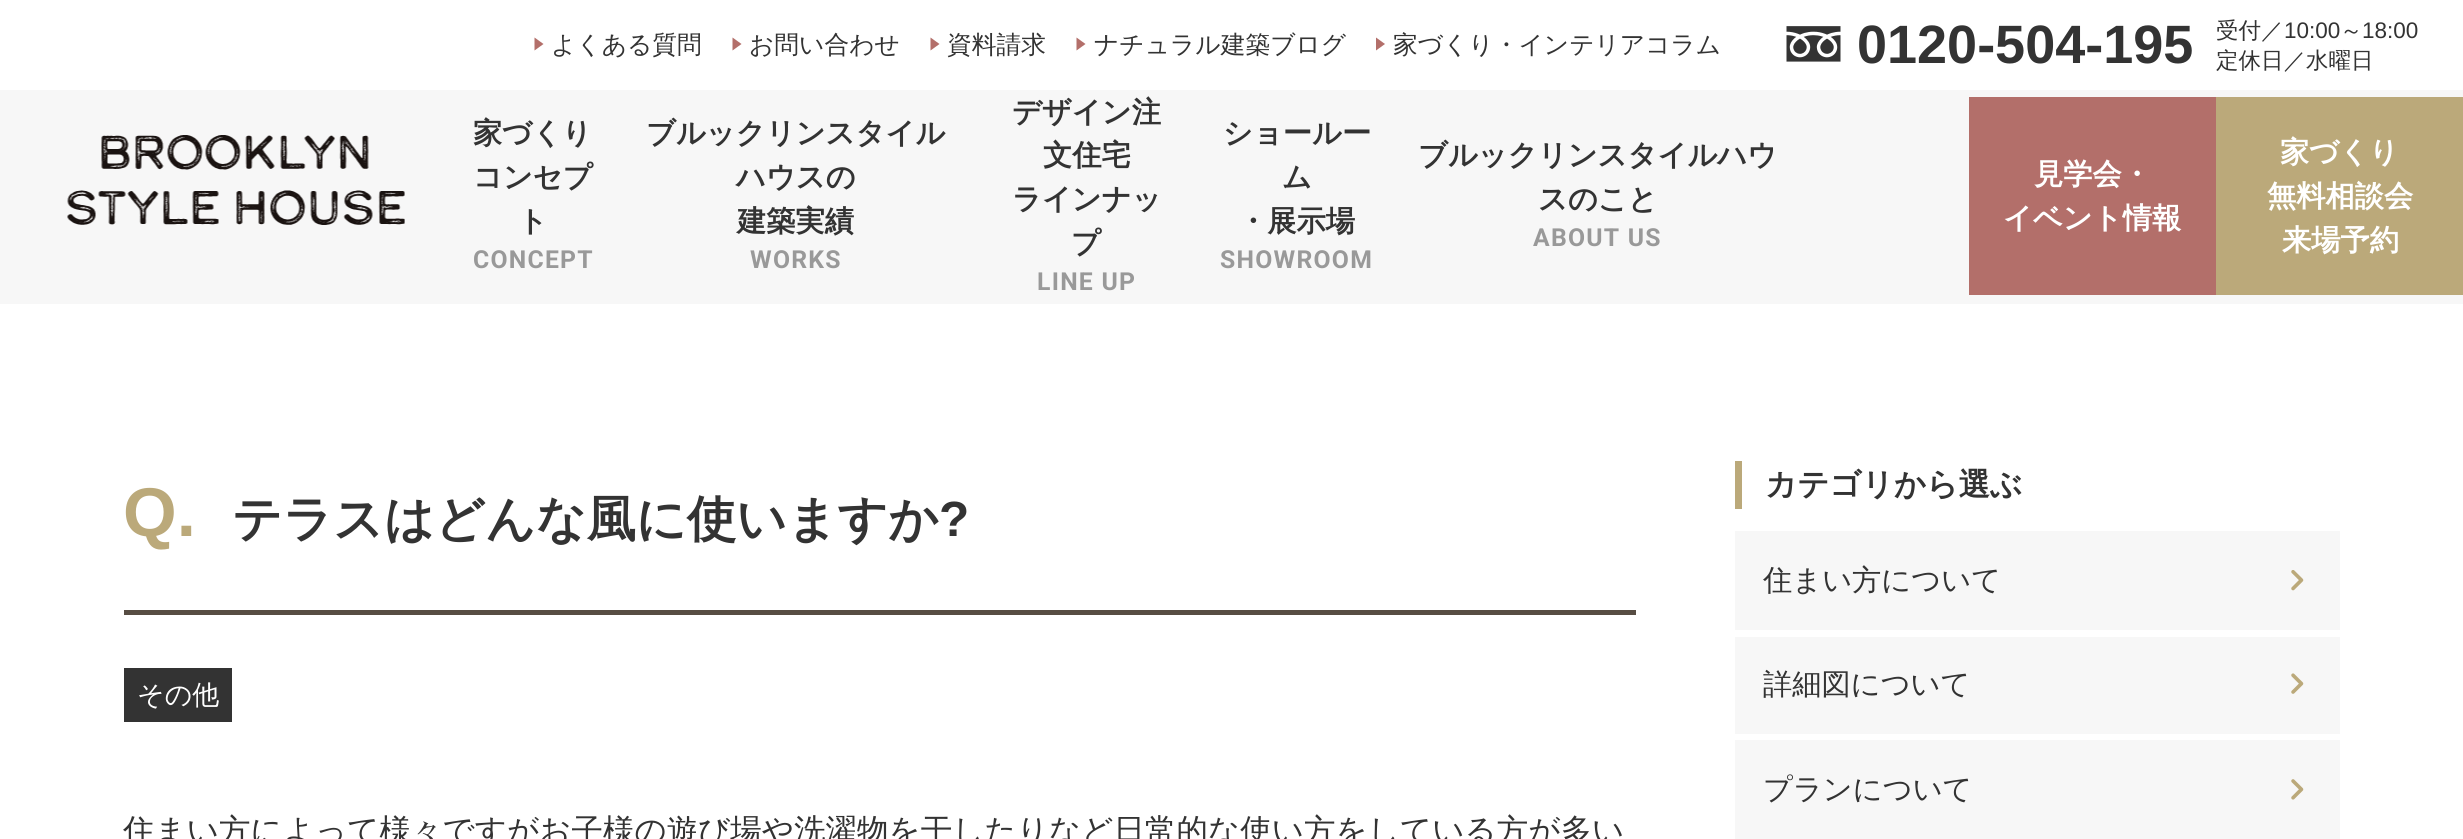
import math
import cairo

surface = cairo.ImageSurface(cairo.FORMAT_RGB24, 2463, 839)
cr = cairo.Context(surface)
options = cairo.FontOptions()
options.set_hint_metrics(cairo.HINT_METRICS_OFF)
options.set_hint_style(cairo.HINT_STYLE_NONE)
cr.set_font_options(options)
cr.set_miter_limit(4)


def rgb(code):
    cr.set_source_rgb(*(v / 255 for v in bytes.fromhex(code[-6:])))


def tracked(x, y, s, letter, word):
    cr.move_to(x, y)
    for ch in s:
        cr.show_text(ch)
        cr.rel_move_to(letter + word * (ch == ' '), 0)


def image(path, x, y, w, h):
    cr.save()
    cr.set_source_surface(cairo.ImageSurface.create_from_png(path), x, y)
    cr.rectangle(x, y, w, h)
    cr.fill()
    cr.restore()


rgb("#ffffff")
cr.paint()
rgb("#f7f7f7")
cr.rectangle(0, 90, 2463, 214)
cr.fill()
image("img/1.png", 67, 135, 338, 90)
image("img/2.png", 1786, 26, 55, 36)
rgb("#b36f6a")
cr.new_path()
cr.move_to(534.5, 50.5)
cr.line_to(534.5, 37.5)
cr.line_to(543.5, 44)
cr.close_path()
cr.fill()
cr.new_path()
cr.move_to(732.5, 50.5)
cr.line_to(732.5, 37.5)
cr.line_to(741.5, 44)
cr.close_path()
cr.fill()
cr.new_path()
cr.move_to(930.5, 50.5)
cr.line_to(930.5, 37.5)
cr.line_to(939.5, 44)
cr.close_path()
cr.fill()
cr.new_path()
cr.move_to(1076.5, 50.5)
cr.line_to(1076.5, 37.5)
cr.line_to(1085.5, 44)
cr.close_path()
cr.fill()
cr.new_path()
cr.move_to(1376, 50.5)
cr.line_to(1376, 37.5)
cr.line_to(1385, 44)
cr.close_path()
cr.fill()
for x, y, w, h, color in [
    (1969, 97, 247, 198, "#b36f6a"),
    (2216, 97, 247, 198, "#bba97a"),
    (124, 610, 1512, 5, "#574d43"),
    (124, 668, 108, 54, "#333333"),
    (1735, 461, 7, 48, "#bba97a"),
    (1735, 531, 605, 99, "#f7f7f7"),
]:
    rgb(color)
    cr.rectangle(x, y, w, h)
    cr.fill()
image("img/3.png", 2291, 570, 13, 21)
cr.rectangle(1735, 637, 605, 97)
cr.fill()
image("img/4.png", 2291, 673, 13, 21)
cr.rectangle(1735, 740, 605, 99)
cr.fill()
image("img/5.png", 2291, 779, 13, 21)
cr.select_font_face("Liberation Sans", cairo.FONT_SLANT_NORMAL, cairo.FONT_WEIGHT_BOLD)
cr.set_font_size(54)
rgb("#333333")
cr.move_to(1857, 63)
cr.show_text("0120-504-195")
cr.select_font_face("WenQuanYi Zen Hei Medium")
cr.set_font_size(22.5)
cr.move_to(2216, 38)
cr.show_text("受付／")
cr.select_font_face("Liberation Sans")
cr.move_to(2284, 38)
cr.show_text("10:00")
cr.select_font_face("WenQuanYi Zen Hei Medium")
cr.move_to(2340, 38)
cr.show_text("～")
cr.select_font_face("Liberation Sans")
cr.move_to(2362, 38)
cr.show_text("18:00")
cr.select_font_face("WenQuanYi Zen Hei Medium")
cr.move_to(2216, 68)
cr.show_text("定休日／水曜日")
cr.set_font_size(24.75)
for x, y, s in [
    (551, 53, "よくある質問"),
    (749, 53, "お問い合わせ"),
    (947, 53, "資料請求"),
    (1094, 53, "ナチュラル建築ブログ"),
    (1393, 53, "家づくり・インテリアコラム"),
]:
    cr.move_to(x, y)
    cr.show_text(s)
cr.select_font_face("WenQuanYi Zen Hei", cairo.FONT_SLANT_NORMAL, cairo.FONT_WEIGHT_BOLD)
cr.set_font_size(29.25)
for x, y, s in [
    (473, 143, "家づくり"),
    (473, 187, "コンセプ"),
    (518, 231, "ト"),
]:
    cr.move_to(x, y)
    cr.show_text(s)
cr.select_font_face("Roboto", cairo.FONT_SLANT_NORMAL, cairo.FONT_WEIGHT_BOLD)
cr.set_font_size(24.75)
rgb("#999999")
tracked(473, 268, "CONCEPT", 1.25, 0)
cr.select_font_face("WenQuanYi Zen Hei", cairo.FONT_SLANT_NORMAL, cairo.FONT_WEIGHT_BOLD)
cr.set_font_size(29.25)
rgb("#333333")
for x, y, s in [
    (646, 143, "ブルックリンスタイル"),
    (736, 187, "ハウスの"),
    (737, 231, "建築実績"),
]:
    cr.move_to(x, y)
    cr.show_text(s)
cr.select_font_face("Roboto", cairo.FONT_SLANT_NORMAL, cairo.FONT_WEIGHT_BOLD)
cr.set_font_size(24.75)
rgb("#999999")
tracked(750, 268, "WORKS", 1.25, 0)
cr.select_font_face("WenQuanYi Zen Hei", cairo.FONT_SLANT_NORMAL, cairo.FONT_WEIGHT_BOLD)
cr.set_font_size(29.25)
rgb("#333333")
for x, y, s in [
    (1012, 122, "デザイン注"),
    (1043, 165, "文住宅"),
    (1012, 209, "ラインナッ"),
    (1071, 253, "プ"),
]:
    cr.move_to(x, y)
    cr.show_text(s)
cr.select_font_face("Roboto", cairo.FONT_SLANT_NORMAL, cairo.FONT_WEIGHT_BOLD)
cr.set_font_size(24.75)
rgb("#999999")
tracked(1037, 290, "LINE UP", 1.25, 0)
cr.select_font_face("WenQuanYi Zen Hei", cairo.FONT_SLANT_NORMAL, cairo.FONT_WEIGHT_BOLD)
cr.set_font_size(29.25)
rgb("#333333")
for x, y, s in [
    (1223, 143, "ショールー"),
    (1282, 187, "ム"),
    (1238, 231, "・展示場"),
]:
    cr.move_to(x, y)
    cr.show_text(s)
cr.select_font_face("Roboto", cairo.FONT_SLANT_NORMAL, cairo.FONT_WEIGHT_BOLD)
cr.set_font_size(24.75)
rgb("#999999")
tracked(1220, 268, "SHOWROOM", 1.25, 0)
cr.select_font_face("WenQuanYi Zen Hei", cairo.FONT_SLANT_NORMAL, cairo.FONT_WEIGHT_BOLD)
cr.set_font_size(29.25)
rgb("#333333")
cr.move_to(1418, 165)
cr.show_text("ブルックリンスタイルハウ")
cr.move_to(1538, 209)
cr.show_text("スのこと")
cr.select_font_face("Roboto", cairo.FONT_SLANT_NORMAL, cairo.FONT_WEIGHT_BOLD)
cr.set_font_size(24.75)
rgb("#999999")
tracked(1533, 246, "ABOUT US", 1.25, 0)
cr.select_font_face("WenQuanYi Zen Hei", cairo.FONT_SLANT_NORMAL, cairo.FONT_WEIGHT_BOLD)
cr.set_font_size(29.25)
rgb("#ffffff")
for x, y, s in [
    (2034, 184, "見学会・"),
    (2003, 228, "イベント情報"),
    (2280, 162, "家づくり"),
    (2267, 206, "無料相談会"),
    (2282, 250, "来場予約"),
]:
    cr.move_to(x, y)
    cr.show_text(s)
cr.select_font_face("Liberation Sans", cairo.FONT_SLANT_NORMAL, cairo.FONT_WEIGHT_BOLD)
cr.set_font_size(69)
rgb("#bba97a")
cr.move_to(123, 536)
cr.show_text("Q.")
cr.select_font_face("WenQuanYi Zen Hei", cairo.FONT_SLANT_NORMAL, cairo.FONT_WEIGHT_BOLD)
cr.set_font_size(49.5)
rgb("#333333")
cr.move_to(232, 536)
cr.show_text("テラスはどんな風に使いますか")
cr.select_font_face("Liberation Sans", cairo.FONT_SLANT_NORMAL, cairo.FONT_WEIGHT_BOLD)
cr.move_to(939, 536)
cr.show_text("?")
cr.select_font_face("WenQuanYi Zen Hei Medium")
cr.set_font_size(27)
rgb("#ffffff")
cr.move_to(137, 704)
cr.show_text("その他")
cr.set_font_size(31.5)
rgb("#333333")
cr.move_to(123, 841)
cr.show_text("住まい方によって様々ですがお子様の遊び場や洗濯物を干したりなど日常的な使い方をしている方が多い")
cr.select_font_face("WenQuanYi Zen Hei", cairo.FONT_SLANT_NORMAL, cairo.FONT_WEIGHT_BOLD)
cr.move_to(1765, 495)
cr.show_text("カテゴリから選ぶ")
cr.select_font_face("WenQuanYi Zen Hei Medium")
cr.set_font_size(29.25)
for x, y, s in [
    (1763, 590, "住まい方について"),
    (1763, 694, "詳細図について"),
    (1763, 799, "プランについて"),
]:
    cr.move_to(x, y)
    cr.show_text(s)
surface.write_to_png("page.png")
